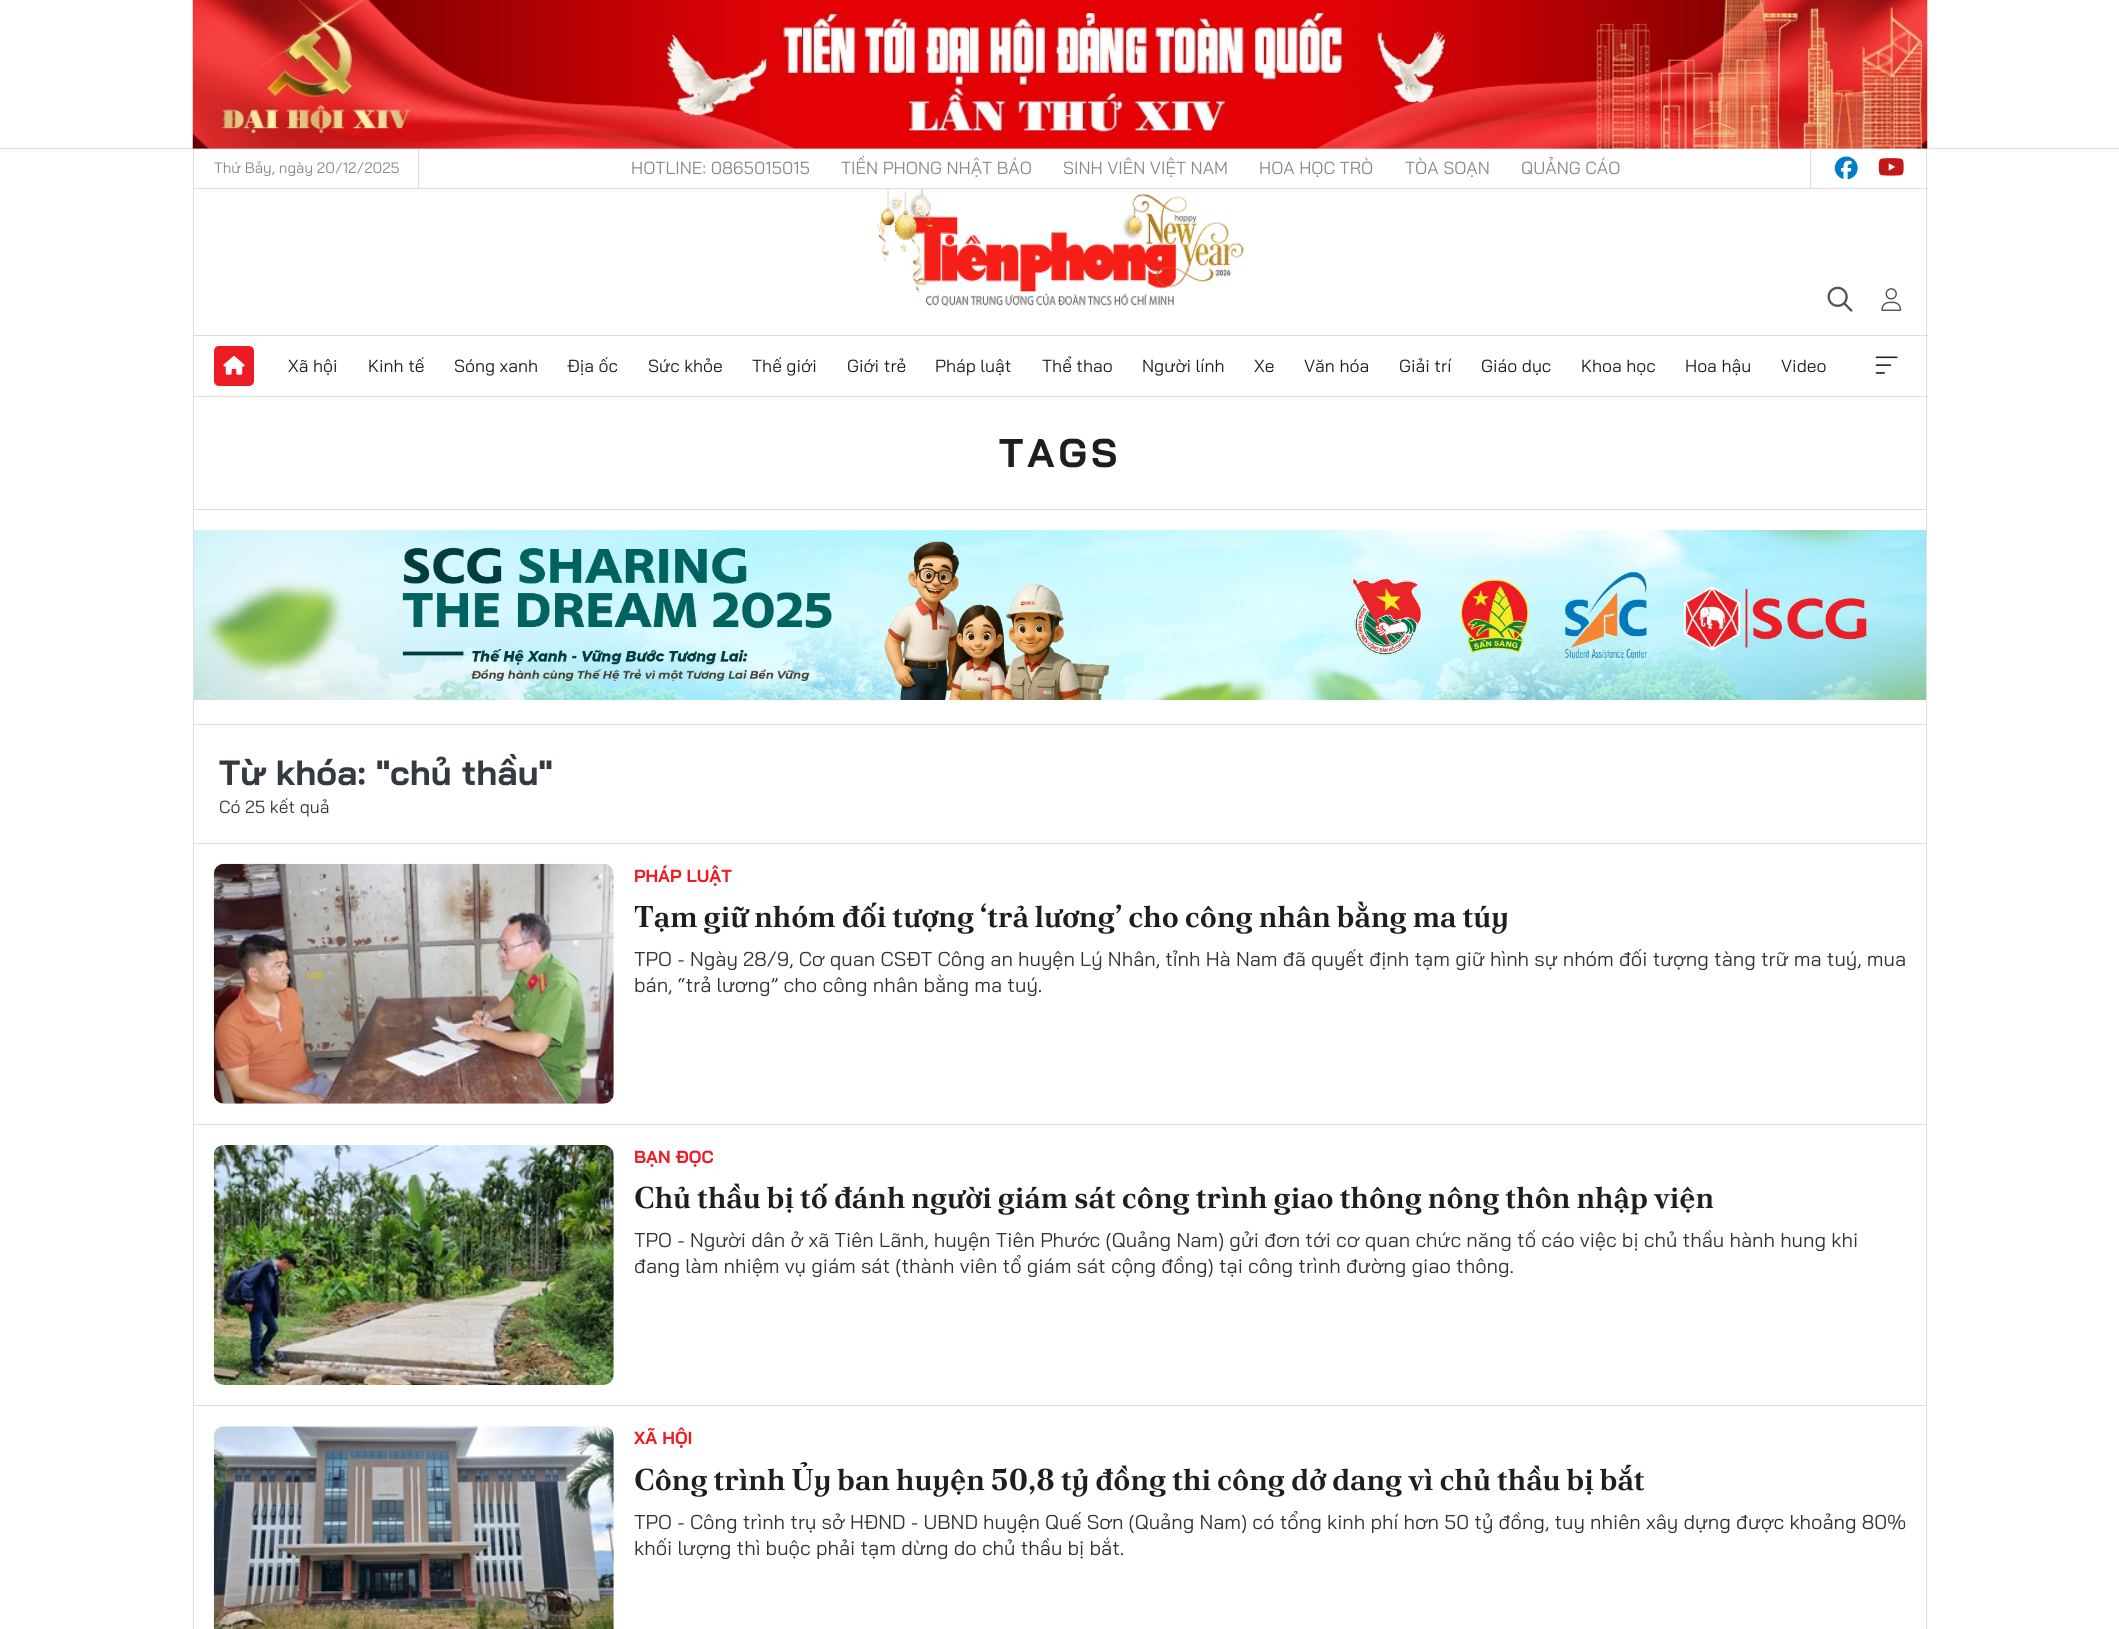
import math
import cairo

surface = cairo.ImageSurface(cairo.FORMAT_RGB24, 2119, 1629)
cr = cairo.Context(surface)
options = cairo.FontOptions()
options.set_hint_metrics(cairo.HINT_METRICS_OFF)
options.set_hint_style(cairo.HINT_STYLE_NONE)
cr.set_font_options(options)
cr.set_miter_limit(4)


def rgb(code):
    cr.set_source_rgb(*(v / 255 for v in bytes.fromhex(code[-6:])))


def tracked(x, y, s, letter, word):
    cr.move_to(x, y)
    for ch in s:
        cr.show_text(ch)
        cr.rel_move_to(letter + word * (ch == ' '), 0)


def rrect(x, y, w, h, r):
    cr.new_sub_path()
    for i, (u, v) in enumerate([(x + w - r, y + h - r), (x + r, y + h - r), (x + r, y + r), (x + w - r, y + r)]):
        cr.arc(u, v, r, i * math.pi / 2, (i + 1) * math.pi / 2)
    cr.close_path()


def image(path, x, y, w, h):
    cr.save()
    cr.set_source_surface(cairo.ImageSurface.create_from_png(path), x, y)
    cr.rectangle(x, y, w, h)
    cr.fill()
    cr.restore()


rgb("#ffffff")
cr.paint()
rgb("#dddddd")
cr.rectangle(0, 148, 2119, 1)
cr.fill()
image("img/1.png", 192, 0, 1736, 149)
for x, y, w, h, color in [
    (1926, 149, 1, 247, "#dddddd"),
    (193, 188, 1735, 1, "#dddddd"),
    (193, 149, 1, 40, "#dddddd"),
    (418, 149, 1, 40, "#dddddd"),
    (1810, 148, 1, 40, "#dddddd"),
]:
    rgb(color)
    cr.rectangle(x, y, w, h)
    cr.fill()
image("img/2.png", 1834, 156, 24, 24)
image("img/3.png", 1878, 158, 26, 18)
cr.rectangle(193, 335, 1735, 1)
cr.fill()
cr.rectangle(193, 189, 1, 207)
cr.fill()
image("img/4.png", 877, 188, 367, 119)
image("img/5.png", 1827, 286, 26, 26)
image("img/6.png", 1881, 288, 21, 23)
rgb("#ed1c24")
rrect(214, 346, 40, 40, 5)
cr.fill()
image("img/7.png", 223, 356, 22, 19)
image("img/8.png", 1875, 356, 23, 18)
for x, y, w, h, color in [
    (193, 396, 1735, 1, "#dddddd"),
    (1926, 396, 1, 1233, "#dddddd"),
    (193, 396, 1, 1233, "#dddddd"),
    (194, 509, 1732, 1, "#dddddd"),
    (194, 724, 1732, 1, "#dddddd"),
]:
    rgb(color)
    cr.rectangle(x, y, w, h)
    cr.fill()
image("img/9.png", 194, 530, 1732, 170)
cr.rectangle(194, 843, 1732, 1)
cr.fill()
cr.rectangle(194, 1124, 1732, 1)
cr.fill()
image("img/10.png", 213, 863, 401, 241)
cr.rectangle(194, 1405, 1732, 1)
cr.fill()
image("img/11.png", 213, 1145, 401, 240)
image("img/12.png", 213, 1426, 401, 203)
cr.select_font_face("Bai Jamjuree")
cr.set_font_size(15)
rgb("#888888")
cr.move_to(214, 173)
cr.show_text("Thứ Bảy, ngày 20/12/2025")
cr.set_font_size(17.5)
for x, y, s in [
    (631, 174, "HOTLINE: 0865015015"),
    (841, 174, "TIỀN PHONG NHẬT BÁO"),
    (1063, 174, "SINH VIÊN VIỆT NAM"),
    (1259, 174, "HOA HỌC TRÒ"),
    (1405, 174, "TÒA SOẠN"),
    (1521, 174, "QUẢNG CÁO"),
]:
    cr.move_to(x, y)
    cr.show_text(s)
rgb("#1e1e1e")
for x, y, s in [
    (288, 372, "Xã hội"),
    (368, 372, "Kinh tế"),
    (454, 372, "Sóng xanh"),
    (567, 372, "Địa ốc"),
    (648, 372, "Sức khỏe"),
    (752, 372, "Thế giới"),
    (847, 372, "Giới trẻ"),
    (935, 372, "Pháp luật"),
    (1042, 372, "Thể thao"),
    (1142, 372, "Người lính"),
    (1254, 372, "Xe"),
    (1304, 372, "Văn hóa"),
    (1399, 372, "Giải trí"),
    (1481, 372, "Giáo dục"),
    (1581, 372, "Khoa học"),
    (1685, 372, "Hoa hậu"),
    (1781, 372, "Video"),
]:
    cr.move_to(x, y)
    cr.show_text(s)
cr.select_font_face("Bai Jamjuree", cairo.FONT_SLANT_NORMAL, cairo.FONT_WEIGHT_BOLD)
cr.set_font_size(40)
tracked(999, 467, "TAGS", 4, 0)
cr.set_font_size(35)
rgb("#343a40")
cr.move_to(219, 785)
cr.show_text("Từ khóa: \"chủ thầu\"")
cr.select_font_face("Bai Jamjuree")
cr.set_font_size(17.5)
cr.move_to(219, 813)
cr.show_text("Có 25 kết quả")
cr.select_font_face("Bai Jamjuree", cairo.FONT_SLANT_NORMAL, cairo.FONT_WEIGHT_BOLD)
rgb("#ed1c24")
cr.move_to(634, 882)
cr.show_text("PHÁP LUẬT")
cr.select_font_face("Poltawski Nowy", cairo.FONT_SLANT_NORMAL, cairo.FONT_WEIGHT_BOLD)
cr.set_font_size(30)
rgb("#1e1e1e")
cr.move_to(634, 927)
cr.show_text("Tạm giữ nhóm đối tượng ‘trả lương’ cho công nhân bằng ma túy")
cr.select_font_face("Bai Jamjuree")
cr.set_font_size(20)
rgb("#333333")
cr.move_to(634, 966)
cr.show_text("TPO - Ngày 28/9, Cơ quan CSĐT Công an huyện Lý Nhân, tỉnh Hà Nam đã quyết định tạm giữ hình sự nhóm đối tượng tàng trữ ma tuý, mua")
cr.move_to(634, 992)
cr.show_text("bán, “trả lương” cho công nhân bằng ma tuý.")
cr.select_font_face("Bai Jamjuree", cairo.FONT_SLANT_NORMAL, cairo.FONT_WEIGHT_BOLD)
cr.set_font_size(17.5)
rgb("#ed1c24")
cr.move_to(634, 1163)
cr.show_text("BẠN ĐỌC")
cr.select_font_face("Poltawski Nowy", cairo.FONT_SLANT_NORMAL, cairo.FONT_WEIGHT_BOLD)
cr.set_font_size(30)
rgb("#1e1e1e")
cr.move_to(634, 1208)
cr.show_text("Chủ thầu bị tố đánh người giám sát công trình giao thông nông thôn nhập viện")
cr.select_font_face("Bai Jamjuree")
cr.set_font_size(20)
rgb("#333333")
cr.move_to(634, 1247)
cr.show_text("TPO - Người dân ở xã Tiên Lãnh, huyện Tiên Phước (Quảng Nam) gửi đơn tới cơ quan chức năng tố cáo việc bị chủ thầu hành hung khi")
cr.move_to(634, 1273)
cr.show_text("đang làm nhiệm vụ giám sát (thành viên tổ giám sát cộng đồng) tại công trình đường giao thông.")
cr.select_font_face("Bai Jamjuree", cairo.FONT_SLANT_NORMAL, cairo.FONT_WEIGHT_BOLD)
cr.set_font_size(17.5)
rgb("#ed1c24")
cr.move_to(634, 1444)
cr.show_text("XÃ HỘI")
cr.select_font_face("Poltawski Nowy", cairo.FONT_SLANT_NORMAL, cairo.FONT_WEIGHT_BOLD)
cr.set_font_size(30)
rgb("#1e1e1e")
cr.move_to(634, 1490)
cr.show_text("Công trình Ủy ban huyện 50,8 tỷ đồng thi công dở dang vì chủ thầu bị bắt")
cr.select_font_face("Bai Jamjuree")
cr.set_font_size(20)
rgb("#333333")
cr.move_to(634, 1529)
cr.show_text("TPO - Công trình trụ sở HĐND - UBND huyện Quế Sơn (Quảng Nam) có tổng kinh phí hơn 50 tỷ đồng, tuy nhiên xây dựng được khoảng 80%")
cr.move_to(634, 1555)
cr.show_text("khối lượng thì buộc phải tạm dừng do chủ thầu bị bắt.")
surface.write_to_png("page.png")
